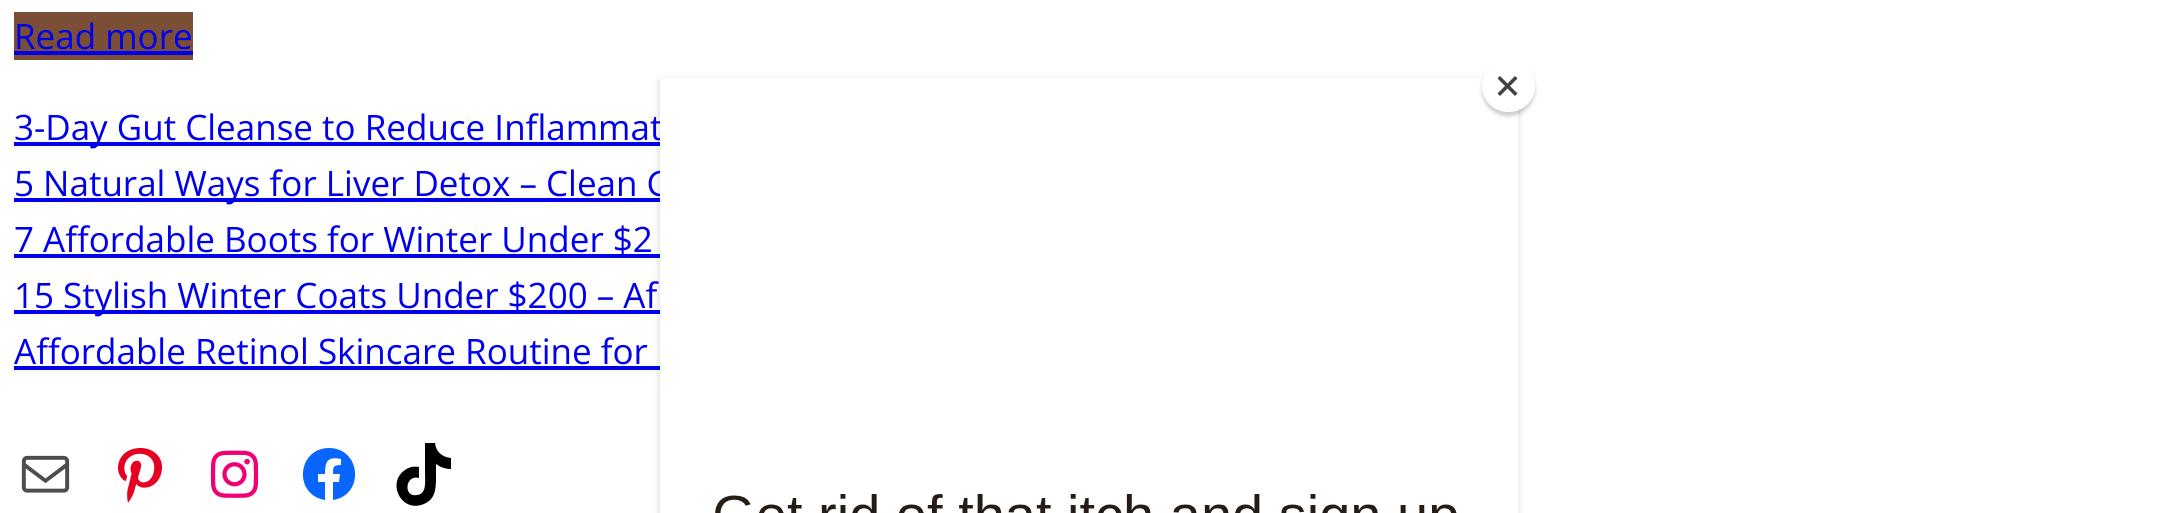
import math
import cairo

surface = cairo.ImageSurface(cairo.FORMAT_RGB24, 2174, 513)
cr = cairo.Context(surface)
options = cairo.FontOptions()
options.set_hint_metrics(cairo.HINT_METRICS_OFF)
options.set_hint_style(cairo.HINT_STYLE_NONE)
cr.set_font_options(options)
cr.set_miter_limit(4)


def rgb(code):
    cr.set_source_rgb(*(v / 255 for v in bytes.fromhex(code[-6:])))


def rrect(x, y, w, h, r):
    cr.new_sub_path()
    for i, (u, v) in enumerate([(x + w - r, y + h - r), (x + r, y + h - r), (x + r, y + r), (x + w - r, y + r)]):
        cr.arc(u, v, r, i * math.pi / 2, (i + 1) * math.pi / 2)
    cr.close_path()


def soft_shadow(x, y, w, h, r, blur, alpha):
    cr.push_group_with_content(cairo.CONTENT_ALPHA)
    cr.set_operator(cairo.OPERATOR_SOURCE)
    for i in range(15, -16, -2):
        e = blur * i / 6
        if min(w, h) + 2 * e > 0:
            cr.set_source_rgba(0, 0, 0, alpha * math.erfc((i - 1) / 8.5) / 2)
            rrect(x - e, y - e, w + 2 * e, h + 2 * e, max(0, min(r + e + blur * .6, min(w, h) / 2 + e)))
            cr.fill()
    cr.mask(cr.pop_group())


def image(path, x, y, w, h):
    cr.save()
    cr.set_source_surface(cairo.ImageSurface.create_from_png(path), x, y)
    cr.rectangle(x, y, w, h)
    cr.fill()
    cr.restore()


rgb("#ffffff")
cr.paint()
for x, y, w, h, color in [
    (14, 12, 179, 48, "#7b4f35"),
    (14, 51, 179, 4, "#0000ee"),
    (14, 142, 646, 4, "#0000ee"),
    (14, 198, 646, 4, "#0000ee"),
    (14, 254, 646, 4, "#0000ee"),
    (14, 310, 646, 4, "#0000ee"),
    (14, 366, 646, 4, "#0000ee"),
]:
    rgb(color)
    cr.rectangle(x, y, w, h)
    cr.fill()
rgb("#000000")
soft_shadow(660, 81, 857, 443, 0, 3.5, 0.2)
image("img/2.png", 21, 455, 49, 38)
image("img/3.png", 118, 448, 44, 55)
image("img/4.png", 210, 450, 49, 48)
rgb("#0866ff")
cr.new_path()
cr.move_to(329, 448)
cr.curve_to(297, 448, 293, 495, 325, 500)
cr.line_to(325, 482)
cr.line_to(318, 482)
cr.line_to(318, 474)
cr.line_to(325, 474)
cr.curve_to(325, 462, 327, 456, 341, 459)
cr.line_to(341, 465)
cr.curve_to(333, 465, 333, 467, 333, 474)
cr.line_to(340, 474)
cr.line_to(339, 482)
cr.line_to(333, 482)
cr.line_to(333, 500)
cr.curve_to(365, 495, 361, 448, 329, 448)
cr.close_path()
cr.fill()
rgb("#000000")
cr.new_path()
cr.move_to(425, 443)
cr.line_to(435, 443)
cr.curve_to(436, 452, 442, 457, 451, 458)
cr.line_to(451, 469)
cr.curve_to(445, 469, 440, 467, 436, 464)
cr.line_to(436, 478)
cr.curve_to(436, 490, 435, 501, 421, 505)
cr.curve_to(400, 511, 387, 482, 405, 470)
cr.curve_to(409, 467, 414, 466, 419, 467)
cr.line_to(419, 478)
cr.curve_to(405, 474, 403, 498, 417, 495)
cr.curve_to(427, 494, 425, 481, 425, 474)
cr.close_path()
cr.fill()
cr.select_font_face("Open Sans")
cr.set_font_size(35)
rgb("#0000ee")
for x, y, s in [
    (14, 49, "Read more"),
    (14, 140, "3-Day Gut Cleanse to Reduce Inflammat"),
    (14, 196, "5 Natural Ways for Liver Detox – Clean G"),
    (14, 252, "7 Affordable Boots for Winter Under $2"),
    (14, 308, "15 Stylish Winter Coats Under $200 – Af"),
    (14, 364, "Affordable Retinol Skincare Routine for"),
]:
    cr.move_to(x, y)
    cr.show_text(s)
image("img/1.png", 660, 78, 858, 435)
rgb("#000000")
soft_shadow(1482, 63, 53, 53, 26.5, 2, 0.2)
rgb("#ffffff")
rrect(1482, 60, 53, 52, 26)
cr.fill()
rgb("#414141")
cr.new_path()
cr.move_to(1515, 76)
cr.line_to(1517.5, 78.5)
cr.line_to(1500, 96)
cr.line_to(1497.5, 93.5)
cr.close_path()
cr.fill()
cr.new_path()
cr.move_to(1497.5, 78.5)
cr.line_to(1500, 76)
cr.line_to(1517.5, 93.5)
cr.line_to(1515, 96)
cr.close_path()
cr.fill()
surface.write_to_png("page.png")
